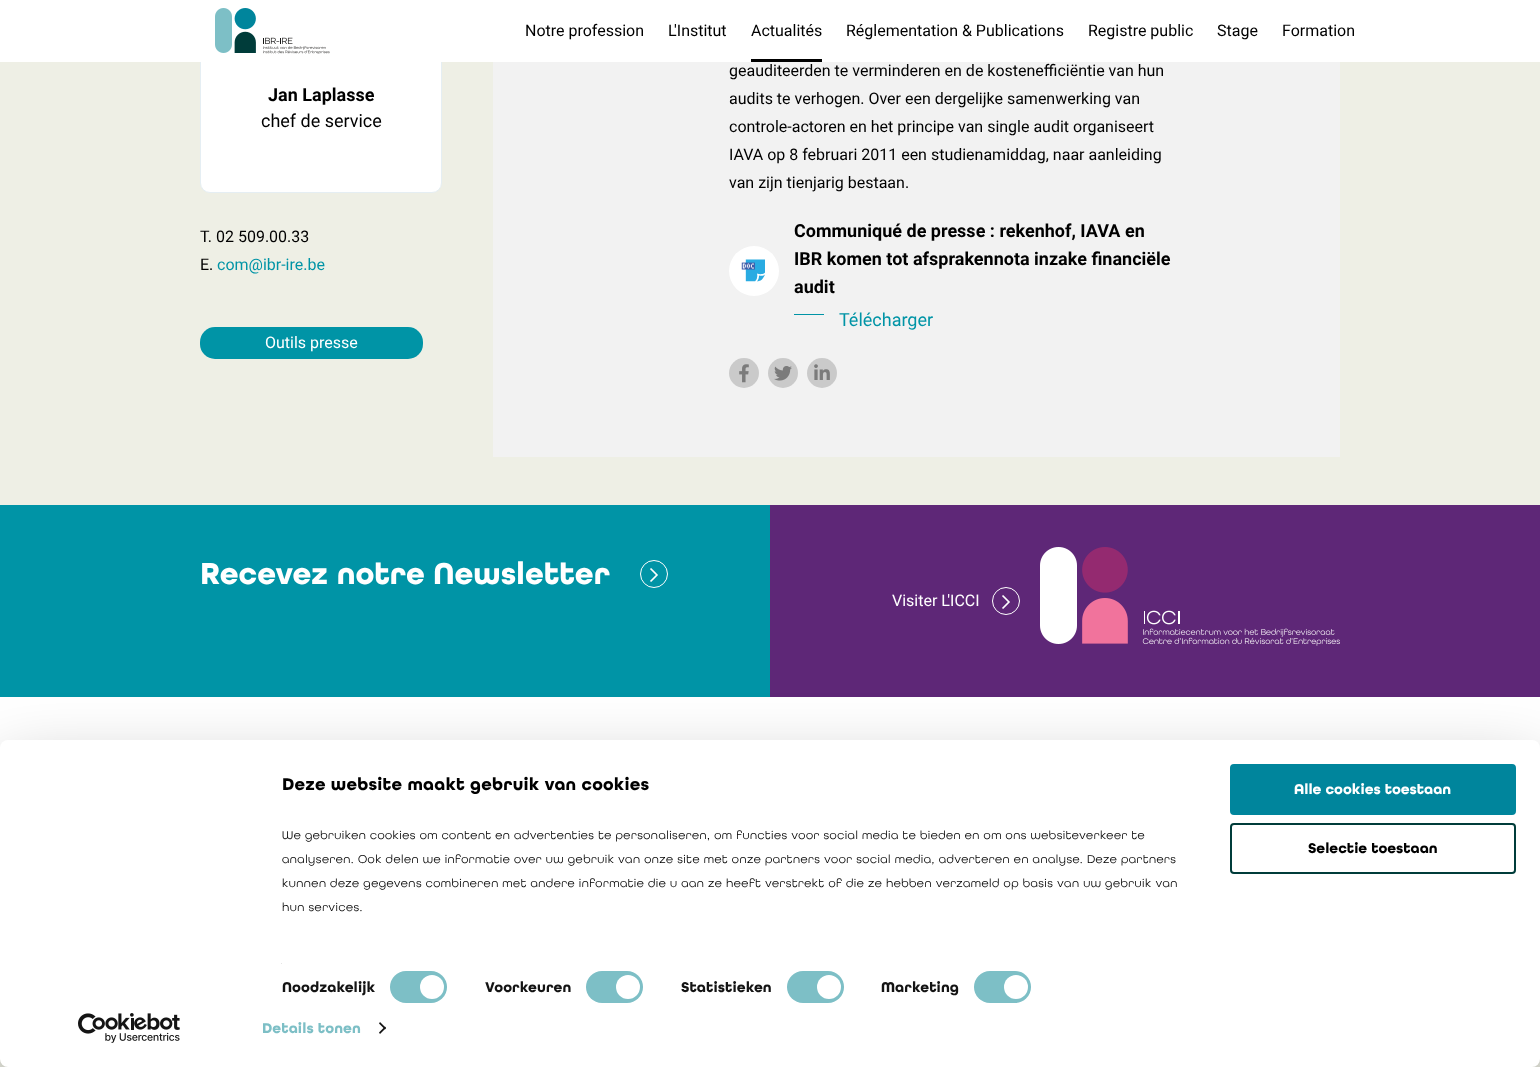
<svg xmlns="http://www.w3.org/2000/svg" width="1540" height="1067" viewBox="0 0 1540 1067">
  <rect width="100%" height="100%" fill="#fff"/>
  <path d="M0 62h1540v443H0z" fill="#eeefe5"/>
  <rect x="200.5" y="-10.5" width="241" height="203" rx="9.5" fill="#fff" stroke="#e5eef3"/>
  <path d="M200 0h242v62H200z" fill="#fff"/>
  <image x="215" y="8" width="115" height="46" href="img/1.png"/>
  <path d="M751 59h71v3H751z" fill="#000"/>
  <rect x="200" y="327" width="223" height="32" rx="15" fill="#0094a6"/>
  <path d="M493 62h847v395H493z" fill="#f2f2f2"/>
  <circle cx="754" cy="271" r="25" fill="#fff"/>
  <image x="741" y="259" width="24" height="23" href="img/2.png"/>
  <path d="M794 314h30v1H794z" fill="#0094a6"/>
  <circle cx="744" cy="373" r="15" fill="#cacaca"/>
  <image x="739" y="364" width="10" height="19" href="img/3.png"/>
  <circle cx="783" cy="373" r="15" fill="#cacaca"/>
  <image x="774" y="366" width="18" height="15" href="img/4.png"/>
  <circle cx="822" cy="373" r="15" fill="#cacaca"/>
  <image x="814" y="364" width="16" height="16" href="img/5.png"/>
  <path d="M770 505h770v192H770z" fill="#5e2777"/>
  <path d="M0 505h770v192H0z" fill="#0094a6"/>
  <circle cx="654" cy="574" r="13.5" fill="none" stroke="#fff"/>
  <image x="650" y="568" width="8" height="14" href="img/6.png"/>
  <circle cx="1006" cy="601" r="13.5" fill="none" stroke="#fff"/>
  <image x="1002" y="595" width="8" height="14" href="img/7.png"/>
  <image x="1040" y="547" width="300" height="99" href="img/8.png"/>
  <path d="M0 1059h1540v8H0z" fill="#eeefe5"/>
  <rect y="770" width="1540" height="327" rx="8" fill="#0000004d" filter="blur(35px)"/>
  <rect y="740" width="1540" height="327" rx="8" fill="#fff"/>
  <path d="M281 963h1v1H281z" fill="#e5e5e5"/>
  <rect x="390" y="971" width="57" height="32" rx="16" fill="#7dbfc6"/>
  <circle cx="432" cy="987" r="12" fill="#fff"/>
  <rect x="586" y="971" width="57" height="32" rx="16" fill="#7dbfc6"/>
  <circle cx="628" cy="987" r="12" fill="#fff"/>
  <rect x="787" y="971" width="57" height="32" rx="16" fill="#7dbfc6"/>
  <circle cx="829" cy="987" r="12" fill="#fff"/>
  <rect x="974" y="971" width="57" height="32" rx="16" fill="#7dbfc6"/>
  <circle cx="1016" cy="987" r="12" fill="#fff"/>
  <path d="M380 1022L386 1028L385 1029.5L379 1023.5Z" fill="#141414"/>
  <path d="M385 1026.5L386 1028L380 1034L379 1032.5Z" fill="#141414"/>
  <rect x="1231" y="765" width="284" height="49" rx="3" fill="#00859c" stroke="#00859c" stroke-width="2"/>
  <rect x="1231" y="824" width="284" height="49" rx="3" fill="none" stroke="#003c3a" stroke-width="2"/>
  <image x="78" y="1013" width="102" height="30" href="img/9.png"/>
  <g font-family="Roboto" font-size="16" fill="#000">
    <text x="525" y="36">Notre profession</text>
    <text x="668" y="36">L'Institut</text>
    <text x="751" y="36">Actualités</text>
    <text x="846" y="36">Réglementation &amp; Publications</text>
    <text x="1088" y="36">Registre public</text>
    <text x="1217" y="36">Stage</text>
    <text x="1282" y="36">Formation</text>
  </g>
  <text x="268" y="101" font-family="Roboto" font-size="18" font-weight="bold" fill="#000">Jan Laplasse</text>
  <text x="261" y="127" font-family="Roboto" font-size="18" fill="#000">chef de service</text>
  <g font-family="Roboto" font-size="16" fill="#000">
    <text x="200" y="242">T. 02 509.00.33</text>
    <text x="200" y="270">E.</text>
  </g>
  <text x="217" y="270" font-family="Roboto" font-size="16" fill="#0094a6">com@ibr-ire.be</text>
  <text x="265" y="348" font-family="Roboto" font-size="16" fill="#fff">Outils presse</text>
  <g font-family="Roboto" font-size="16" fill="#000">
    <text x="729" y="76">geauditeerden te verminderen en de kostenefficiëntie van hun</text>
    <text x="729" y="104">audits te verhogen. Over een dergelijke samenwerking van</text>
    <text x="729" y="132">controle-actoren en het principe van single audit organiseert</text>
    <text x="729" y="160">IAVA op 8 februari 2011 een studienamiddag, naar aanleiding</text>
    <text x="729" y="188">van zijn tienjarig bestaan.</text>
  </g>
  <g font-family="Roboto" font-size="18" font-weight="bold" fill="#000">
    <text x="794" y="237">Communiqué de presse : rekenhof, IAVA en</text>
    <text x="794" y="265">IBR komen tot afsprakennota inzake financiële</text>
    <text x="794" y="293">audit</text>
  </g>
  <text x="839" y="326" font-family="Roboto" font-size="18" fill="#0094a6">Télécharger</text>
  <text x="200" y="584" font-family="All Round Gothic" font-size="32" font-weight="bold" fill="#fff">Recevez notre Newsletter</text>
  <text x="892" y="606" font-family="Roboto" font-size="16" fill="#fff">Visiter L'ICCI</text>
  <text x="282" y="790" font-family="All Round Gothic" font-size="18" font-weight="bold" letter-spacing="0.25" fill="#000">Deze website maakt gebruik van cookies</text>
  <g font-family="All Round Gothic" font-size="12" letter-spacing="0.5" fill="#000">
    <text x="282" y="839">We gebruiken cookies om content en advertenties te personaliseren, om functies voor social media te bieden en om ons websiteverkeer te</text>
    <text x="282" y="863">analyseren. Ook delen we informatie over uw gebruik van onze site met onze partners voor social media, adverteren en analyse. Deze partners</text>
    <text x="282" y="887">kunnen deze gegevens combineren met andere informatie die u aan ze heeft verstrekt of die ze hebben verzameld op basis van uw gebruik van</text>
    <text x="282" y="911">hun services.</text>
  </g>
  <g font-family="All Round Gothic" font-size="15" font-weight="bold" letter-spacing="0.1" fill="#141414">
    <text x="282" y="992">Noodzakelijk</text>
    <text x="485" y="992">Voorkeuren</text>
    <text x="681" y="992">Statistieken</text>
    <text x="881" y="992">Marketing</text>
  </g>
  <text x="262" y="1033" font-family="All Round Gothic" font-size="15" font-weight="bold" letter-spacing="0.1" fill="#7dbfc6">Details tonen</text>
  <text x="1294" y="794" font-family="All Round Gothic" font-size="15" font-weight="bold" fill="#fff">Alle cookies toestaan</text>
  <text x="1308" y="853" font-family="All Round Gothic" font-size="15" font-weight="bold" fill="#000">Selectie toestaan</text>
</svg>
